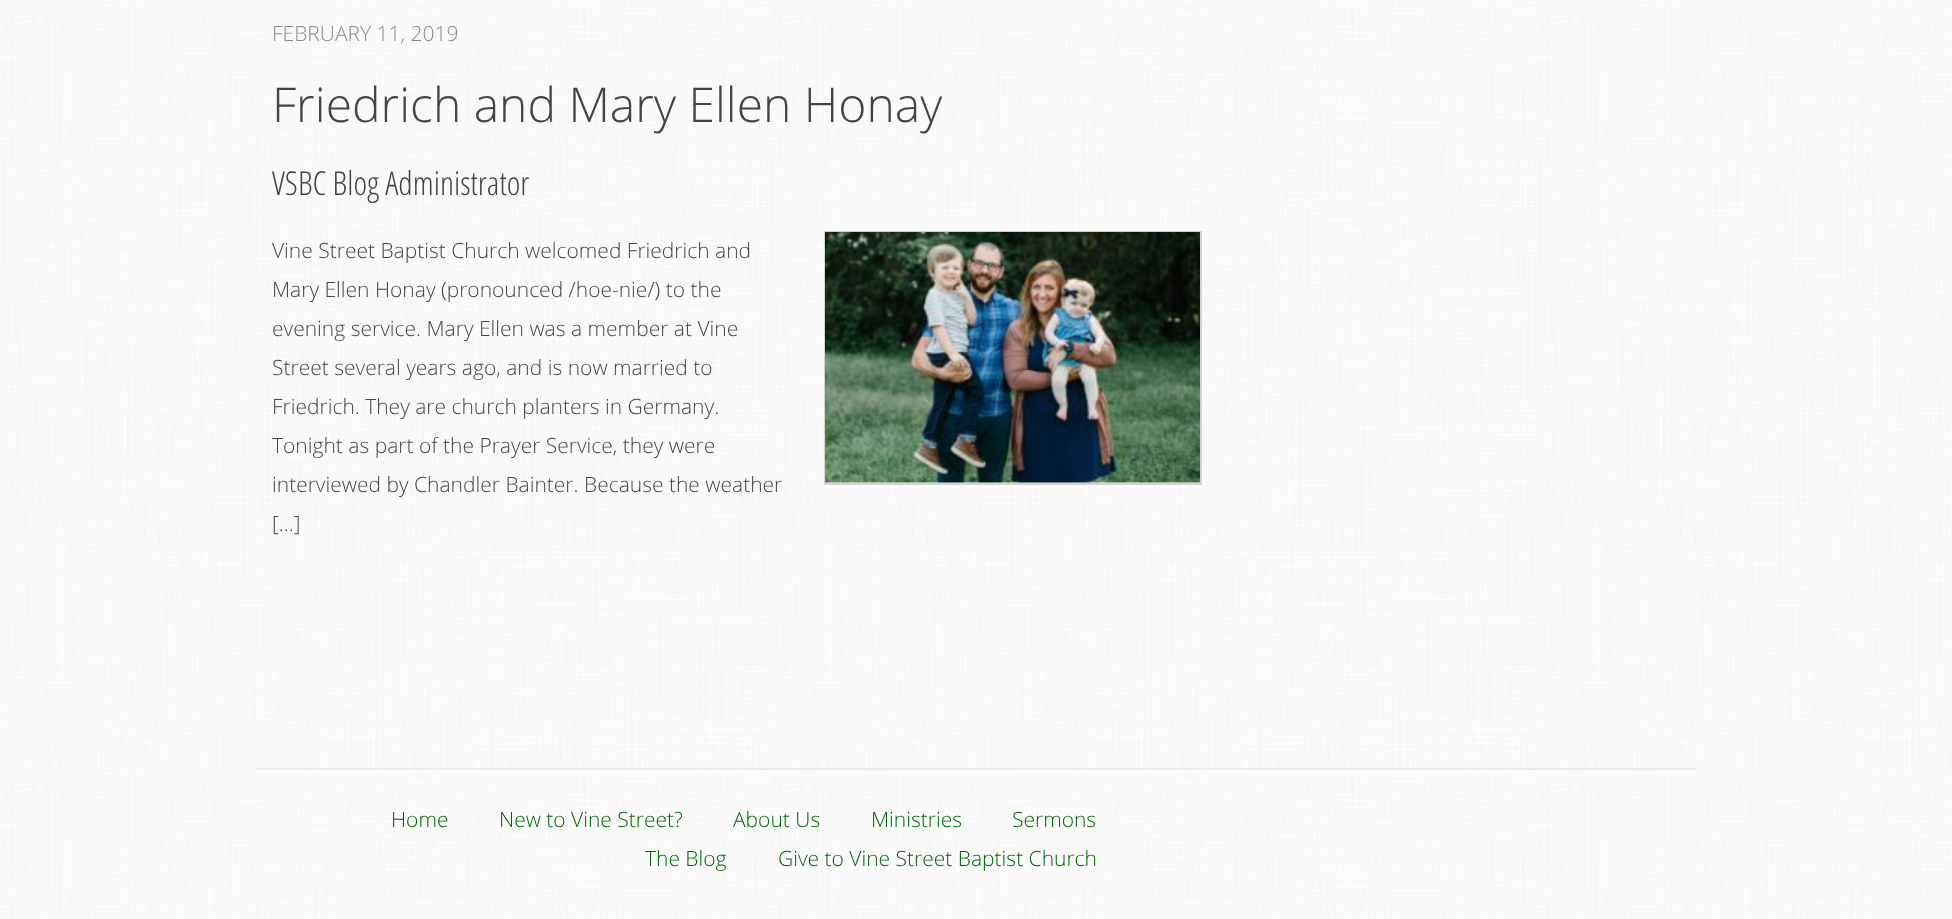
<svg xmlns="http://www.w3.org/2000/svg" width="1952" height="919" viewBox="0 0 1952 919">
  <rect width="100%" height="100%" fill="#fff"/>
  <image x="0" y="0" width="1952" height="919" href="img/1.png"/>
  <path d="M825 232h376v252H825z" fill="none" stroke="#d3d3d3" stroke-width="2"/>
  <image x="825" y="232" width="375" height="251" href="img/2.png"/>
  <path d="M257 768h1440v2H257z" fill="#ecebeb"/>
  <text x="272" y="41" font-family="Open Sans" font-size="21" font-weight="300" fill="#8b8b86">FEBRUARY 11, 2019</text>
  <text x="272" y="122" font-family="Open Sans" font-size="48" font-weight="300" fill="#444">Friedrich and Mary Ellen Honay</text>
  <text x="272" y="195" font-family="'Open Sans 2'" font-size="33" font-weight="300" fill="#444">VSBC Blog Administrator</text>
  <g font-family="Open Sans" font-size="21" font-weight="300" fill="#444">
    <text x="272" y="258">Vine Street Baptist Church welcomed Friedrich and</text>
    <text x="272" y="297">Mary Ellen Honay (pronounced /hoe-nie/) to the</text>
    <text x="272" y="336">evening service. Mary Ellen was a member at Vine</text>
    <text x="272" y="375">Street several years ago, and is now married to</text>
    <text x="272" y="414">Friedrich. They are church planters in Germany.</text>
    <text x="272" y="453">Tonight as part of the Prayer Service, they were</text>
    <text x="272" y="492">interviewed by Chandler Bainter. Because the weather</text>
    <text x="272" y="531">[…]</text>
  </g>
  <g font-family="Open Sans" font-size="21" font-weight="300" fill="#006604">
    <text x="391" y="827">Home</text>
    <text x="499" y="827">New to Vine Street?</text>
    <text x="733" y="827">About Us</text>
    <text x="871" y="827">Ministries</text>
    <text x="1012" y="827">Sermons</text>
    <text x="645" y="866">The Blog</text>
    <text x="778" y="866">Give to Vine Street Baptist Church</text>
  </g>
</svg>
